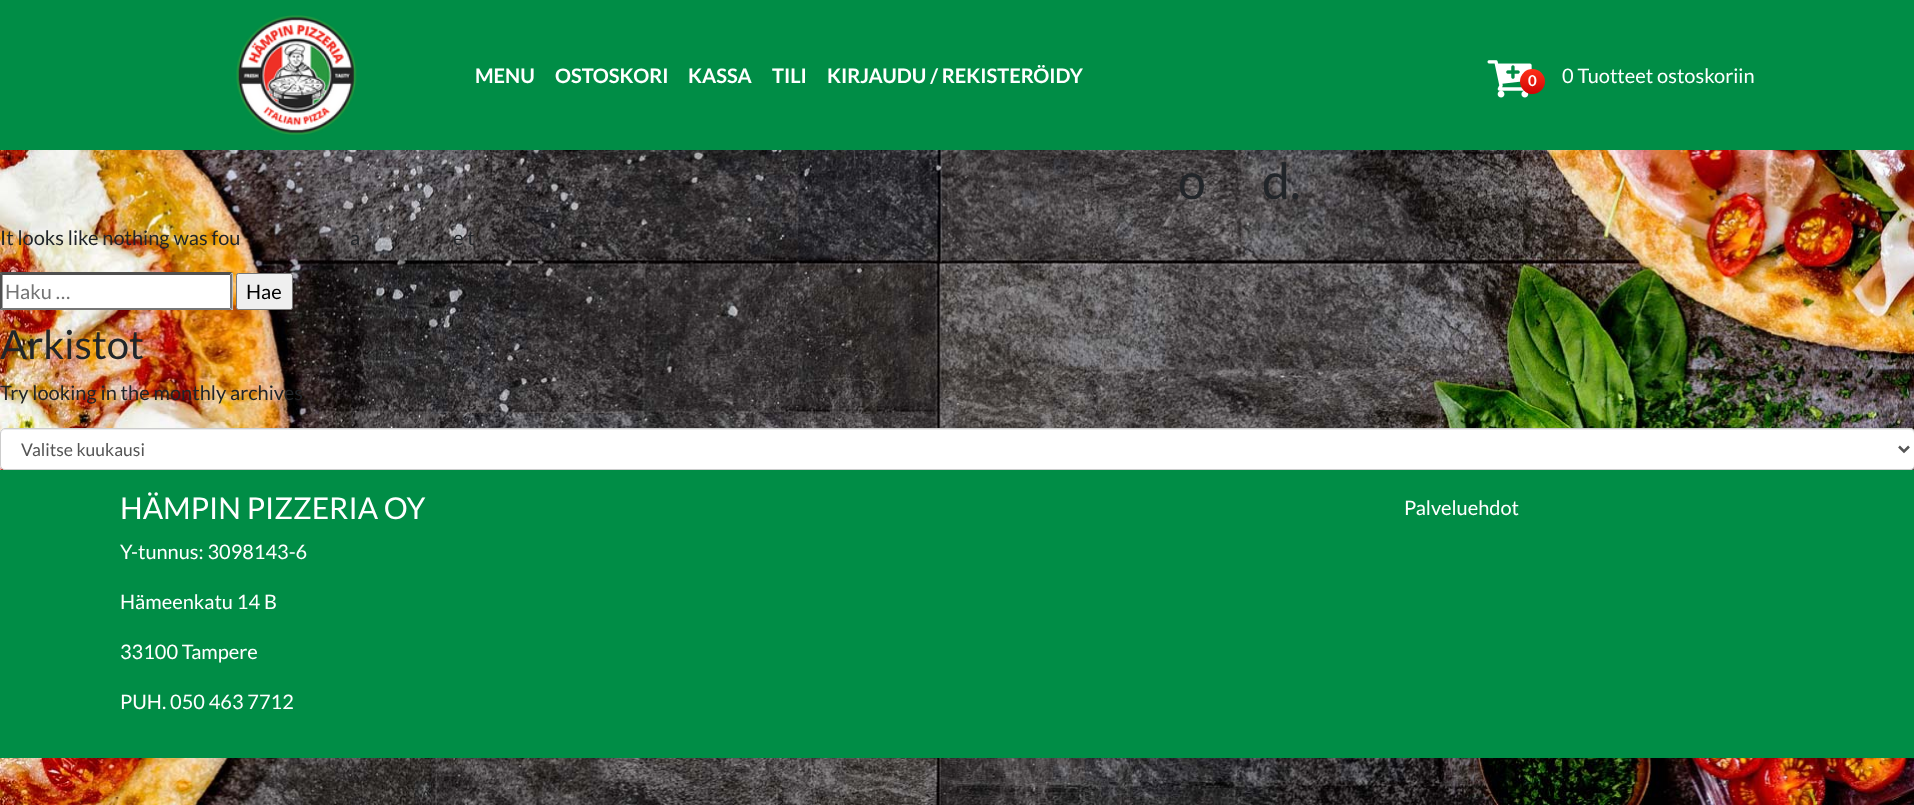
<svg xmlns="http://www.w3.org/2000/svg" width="1914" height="805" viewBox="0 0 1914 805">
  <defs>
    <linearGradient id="g1" gradientUnits="userSpaceOnUse" x1="1533" y1="69" x2="1533" y2="94"><stop offset="0" stop-color="#ff3019"/><stop offset="1" stop-color="#cf0404"/></linearGradient>
  </defs>
  <rect width="100%" height="100%" fill="#fff"/>
  <image x="0" y="150" width="1914" height="655" href="img/1.png"/>
  <path d="M0 0h1914v150H0z" fill="#008d46"/>
  <image x="236" y="15" width="121" height="120" href="img/2.png"/>
  <image x="1487" y="60" width="45" height="38" href="img/3.png"/>
  <circle cx="1532.5" cy="81.5" r="12.5" fill="url(#g1)"/>
  <path d="M0 273h233v37H0z" fill="#fff"/>
  <path d="M0 272H232L230 275H2Z" fill="#4f4f4f"/>
  <path d="M232.5 272.5V310L230 307.5V275Z" fill="#767676"/>
  <path d="M232 310H0L2 308H230Z" fill="#767676"/>
  <path d="M0 310V272.5L2.5 275V307.5Z" fill="#4f4f4f"/>
  <rect x="236.5" y="273.5" width="56" height="36" rx="2" fill="#efefef" stroke="#767676"/>
  <rect y="428" width="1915" height="42" rx="5" fill="#fff"/>
  <path d="M5 430H1910C1912 430 1914 432 1914 434V433C1914 431 1912 429 1910 429H5C3 429 1 431 1 433V434C1 432 3 430 5 430Z" fill="#ececec"/>
  <rect x="0.5" y="428.5" width="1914" height="41" rx="4.5" fill="none" stroke="#ccc"/>
  <path d="M1899 446.5L1904 451.5L1909 446.5" fill="none" stroke="#555" stroke-width="2.5"/>
  <path d="M0 470h1914v288H0z" fill="#008d46"/>
  <g font-family="Lato" font-size="20" font-weight="bold" fill="#fff">
    <text x="475" y="83">MENU</text>
    <text x="555" y="83">OSTOSKORI</text>
    <text x="688" y="83">KASSA</text>
    <text x="772" y="83">TILI</text>
    <text x="827" y="83">KIRJAUDU / REKISTERÖIDY</text>
  </g>
  <text x="1528" y="86" font-family="Lato" font-size="15" font-weight="bold" fill="#fff">0</text>
  <text x="1562" y="83" font-family="Lato" font-size="20" fill="#fff">0 Tuotteet ostoskoriin</text>
  <g font-family="Lato" font-size="50" fill="#212529">
    <text x="1178" y="199">o</text>
    <text x="1262" y="199">d.</text>
  </g>
  <g font-family="Lato" font-size="20" fill="#212529">
    <text x="0" y="245">It looks like nothing was fou</text>
    <text x="350" y="245">a</text>
    <text x="453" y="245">e t</text>
  </g>
  <text x="5" y="299" font-family="Lato" font-size="20" fill="#757575">Haku …</text>
  <text x="246" y="299" font-family="Lato" font-size="20" fill="#000">Hae</text>
  <text x="0" y="359" font-family="Lato" font-size="40" fill="#212529">Arkistot</text>
  <text x="0" y="400" font-family="Lato" font-size="20" fill="#212529">Try looking in the monthly archives</text>
  <text x="21" y="456" font-family="Lato" font-size="17.5" fill="#555">Valitse kuukausi</text>
  <text x="120" y="519" font-family="Lato" font-size="30" fill="#fff">HÄMPIN PIZZERIA OY</text>
  <g font-family="Lato" font-size="20" fill="#fff">
    <text x="120" y="559">Y-tunnus: 3098143-6</text>
    <text x="120" y="609">Hämeenkatu 14 B</text>
    <text x="120" y="659">33100 Tampere</text>
    <text x="120" y="709">PUH. 050 463 7712</text>
    <text x="1404" y="515">Palveluehdot</text>
  </g>
</svg>
